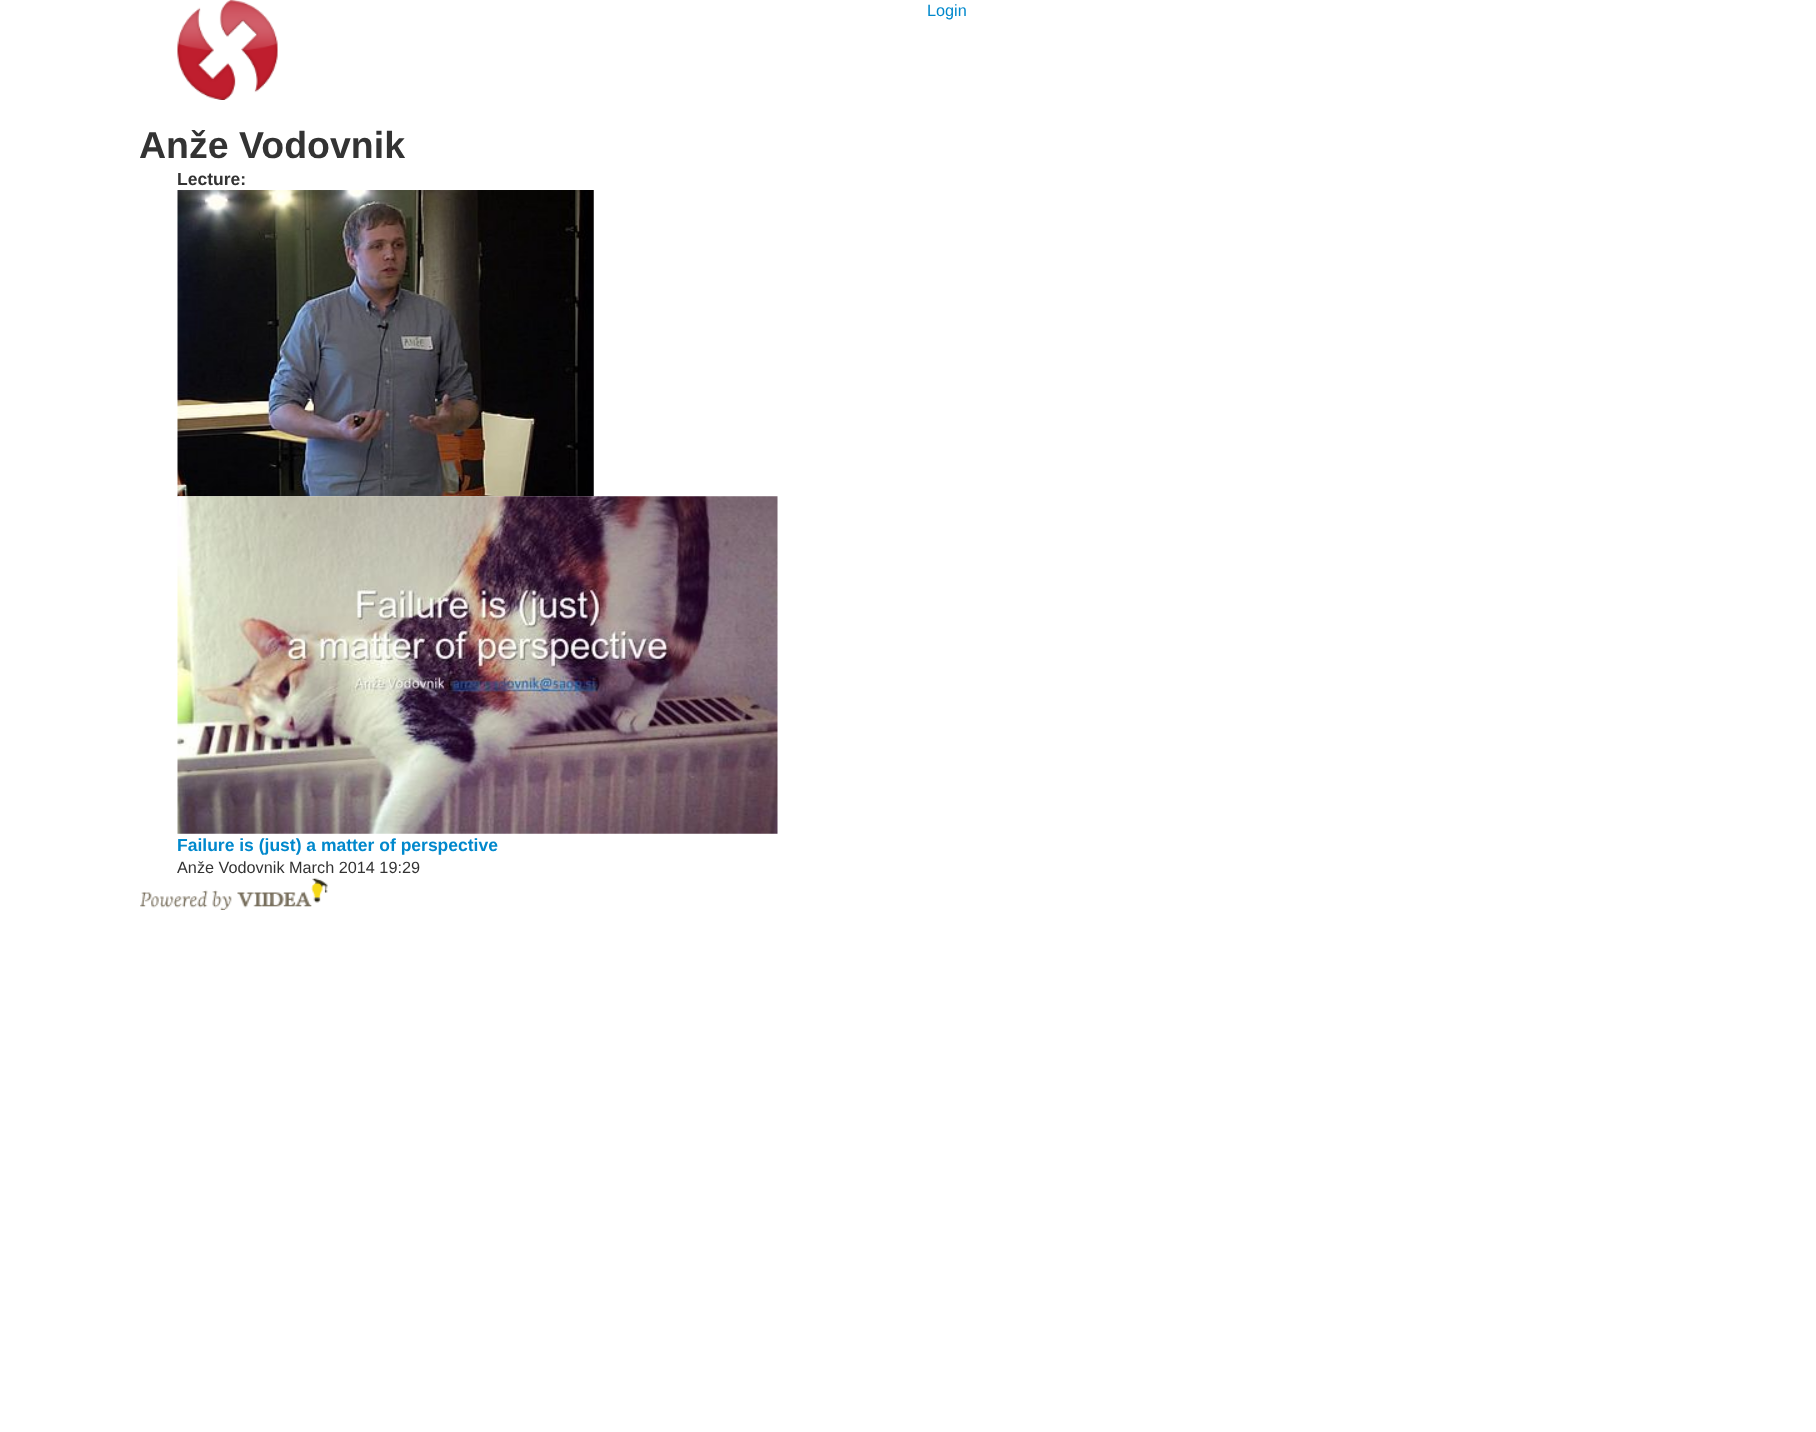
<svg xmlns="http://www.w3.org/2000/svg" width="1816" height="1432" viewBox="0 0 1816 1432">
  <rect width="100%" height="100%" fill="#fff"/>
  <image x="177" y="0" width="101" height="100" href="img/1.png"/>
  <image x="177" y="190" width="417" height="307" href="img/2.png"/>
  <image x="177" y="496" width="601" height="338" href="img/3.png"/>
  <image x="140" y="878" width="188" height="32" href="img/4.png"/>
  <text x="927" y="16" font-family="Liberation Sans" font-size="16.25" fill="#08c">Login</text>
  <text x="139" y="158" font-family="Liberation Sans" font-size="37.5" font-weight="bold" fill="#333">Anže Vodovnik</text>
  <text x="177" y="185" font-family="Liberation Sans" font-size="17.5" font-weight="bold" fill="#333">Lecture:</text>
  <text x="177" y="851" font-family="Liberation Sans" font-size="17.5" font-weight="bold" fill="#08c">Failure is (just) a matter of perspective</text>
  <text x="177" y="873" font-family="Liberation Sans" font-size="16.25" fill="#333">Anže Vodovnik March 2014 19:29</text>
</svg>
